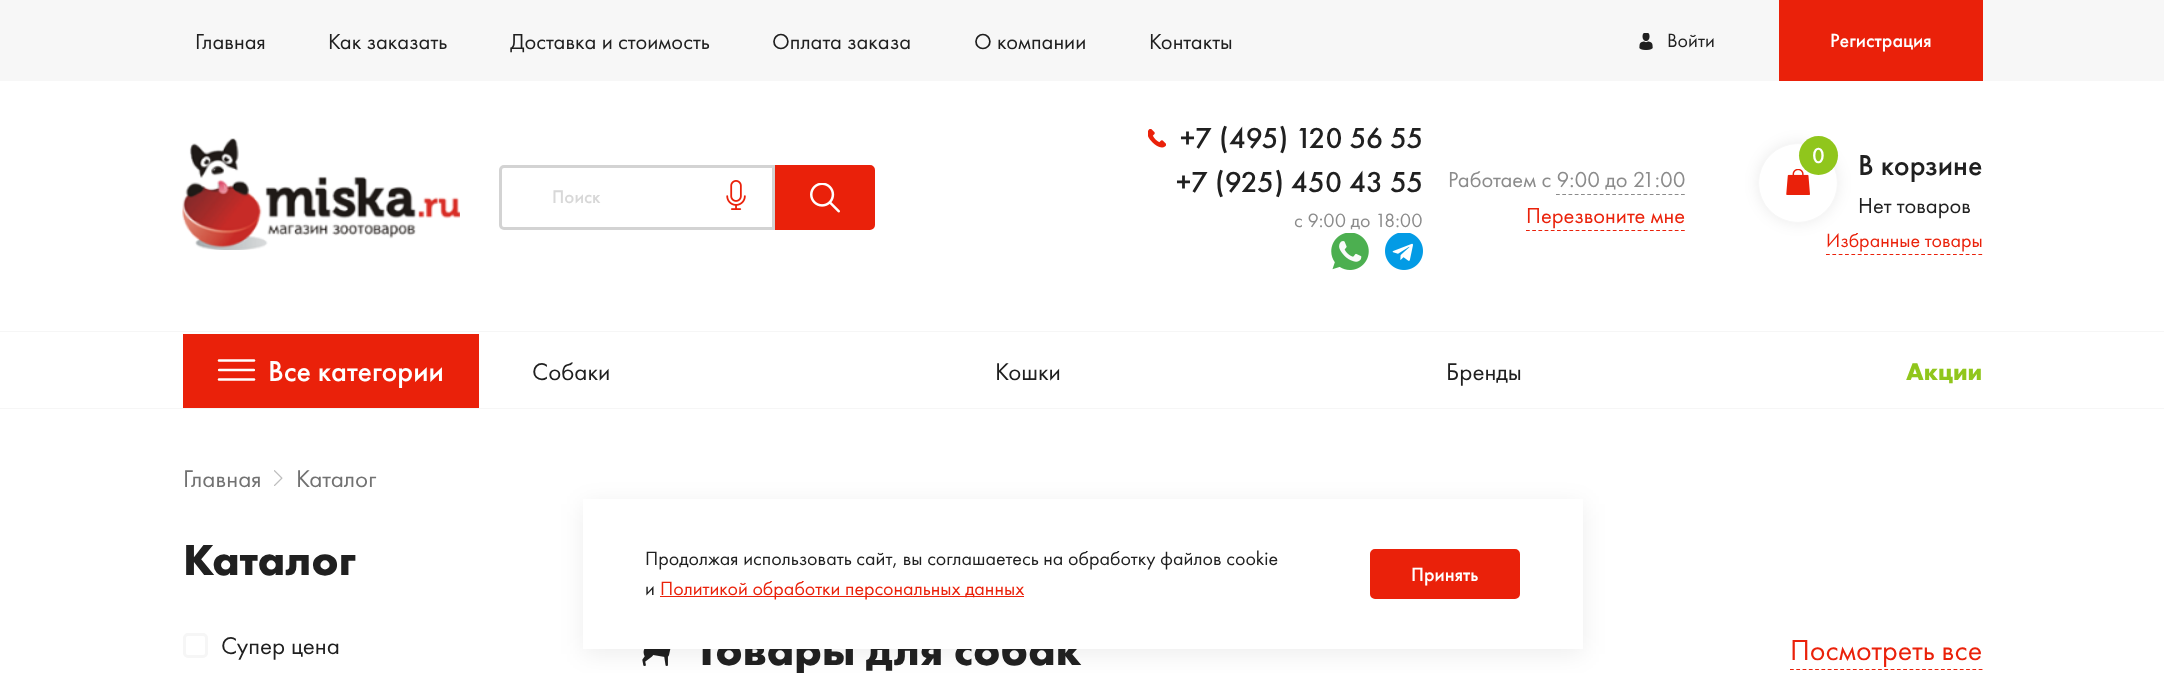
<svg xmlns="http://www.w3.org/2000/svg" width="2164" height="673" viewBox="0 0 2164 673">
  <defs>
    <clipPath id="clip1"><path d="M218 351h37v38H218z"/></clipPath>
  </defs>
  <rect width="100%" height="100%" fill="#fff"/>
  <path d="M0 0h2164v81H0z" fill="#f7f7f7"/>
  <image x="1639" y="33" width="14" height="17" href="img/1.png"/>
  <path d="M1779 0h204v81H1779z" fill="#ea210a"/>
  <image x="182" y="138" width="278" height="112" href="img/2.png"/>
  <path d="M504 166.5H773.5V228.5H504C502 228.5 500.5 227 500.5 225V170C500.5 168 502 166.5 504 166.5Z" fill="none" stroke="#d3d3d3" stroke-width="3"/>
  <image x="726" y="180" width="20" height="30" href="img/3.png"/>
  <path d="M776.5 166.5H870C872 166.5 873.5 168 873.5 170V225C873.5 227 872 228.5 870 228.5H776.5Z" fill="#ea210a" stroke="#ea210a" stroke-width="3"/>
  <image x="810" y="183" width="30" height="30" href="img/4.png"/>
  <image x="1148" y="129" width="18" height="19" href="img/5.png"/>
  <image x="1331" y="233" width="38" height="37" href="img/6.png"/>
  <image x="1385" y="233" width="38" height="37" href="img/7.png"/>
  <path d="M1556 194.5H1685" fill="none" stroke="#8b8b8b" stroke-width="1.2" stroke-dasharray="3.75 2.5"/>
  <path d="M1526 230.5H1685" fill="none" stroke="#ea210a" stroke-width="1.2" stroke-dasharray="3.75 2.45"/>
  <rect x="1758" y="143" width="80" height="80" rx="40" fill="#00000014" filter="blur(7.5px)"/>
  <circle cx="1798" cy="183" r="39.5" fill="#fff" stroke="#f7f7f7"/>
  <image x="1786" y="169" width="24" height="26" href="img/8.png"/>
  <circle cx="1818.5" cy="155.5" r="19.5" fill="#90c61c"/>
  <path d="M1826 254.5H1982.5" fill="none" stroke="#ea210a" stroke-width="1.2" stroke-dasharray="3.75 2.6"/>
  <path d="M0 331h2164v1H0z" fill="#f6f6f6"/>
  <path d="M0 408h2164v1H0z" fill="#f6f6f6"/>
  <path d="M183 334h296v74H183z" fill="#ea210a"/>
  <path d="M219 360.5H254" fill="none" stroke="#fff" stroke-width="2.5" stroke-linecap="round" stroke-linejoin="round"/>
  <g clip-path="url(#clip1)">
    <path d="M219 370H254" fill="none" stroke="#fff" stroke-width="2.5" stroke-linecap="round" stroke-linejoin="round"/>
  </g>
  <path d="M219 379.5H254" fill="none" stroke="#fff" stroke-width="2.5" stroke-linecap="round" stroke-linejoin="round"/>
  <image x="274" y="470" width="9" height="16" href="img/9.png"/>
  <image x="642" y="649" width="29" height="17" href="img/10.png"/>
  <path d="M583 504h1000v150H583z" fill="#00000012" filter="blur(12.5px)"/>
  <rect x="184.5" y="634.5" width="22" height="22" rx="3.5" fill="none" stroke="#f6f6f6" stroke-width="3"/>
  <path d="M1790 669.5H1982.5" fill="none" stroke="#ea210a" stroke-width="1.2" stroke-dasharray="3.75 2.54"/>
  <g font-family="Futura PT" font-size="22.5" fill="#202020">
    <text x="195" y="49">Главная</text>
    <text x="328" y="49">Как заказать</text>
    <text x="510" y="49">Доставка и стоимость</text>
    <text x="772" y="49">Оплата заказа</text>
    <text x="974" y="49">О компании</text>
    <text x="1149" y="49">Контакты</text>
  </g>
  <text x="1667" y="47" font-family="Futura PT" font-size="20" fill="#202020">Войти</text>
  <text x="1830" y="47" font-family="Futura PT" font-size="20" font-weight="500" fill="#fff">Регистрация</text>
  <text x="552" y="203" font-family="Futura PT" font-size="19" font-weight="500" fill="#d8d8d8">Поиск</text>
  <g font-family="Futura PT" font-size="30" font-weight="500" fill="#202020">
    <text x="1180" y="148">+7 (495) 120 56 55</text>
    <text x="1176" y="192">+7 (925) 450 43 55</text>
  </g>
  <text x="1294" y="227" font-family="Futura PT" font-size="20" fill="#8b8b8b">с 9:00 до 18:00</text>
  <text x="1448" y="187" font-family="Futura PT" font-size="22.5" fill="#8b8b8b">Работаем с 9:00 до 21:00</text>
  <text x="1526" y="223" font-family="Futura PT" font-size="22.5" fill="#ea210a">Перезвоните мне</text>
  <text x="1812" y="163" font-family="Futura PT" font-size="22.5" font-weight="500" fill="#fff">0</text>
  <text x="1858" y="175" font-family="Futura PT" font-size="30" font-weight="500" fill="#202020">В корзине</text>
  <text x="1858" y="213" font-family="Futura PT" font-size="22.5" fill="#202020">Нет товаров</text>
  <text x="1826" y="247" font-family="Futura PT" font-size="20" fill="#ea210a">Избранные товары</text>
  <text x="268" y="381" font-family="Futura PT" font-size="30" font-weight="500" fill="#fff">Все категории</text>
  <g font-family="Futura PT" font-size="25" fill="#202020">
    <text x="532" y="380">Собаки</text>
    <text x="995" y="380">Кошки</text>
    <text x="1446" y="380">Бренды</text>
  </g>
  <text x="1906" y="380" font-family="Futura PT" font-size="25" font-weight="bold" fill="#90c61c">Акции</text>
  <g font-family="Futura PT" font-size="25" fill="#727272">
    <text x="183" y="487">Главная</text>
    <text x="296" y="487">Каталог</text>
  </g>
  <text x="183" y="575" font-family="Futura PT" font-size="45" font-weight="bold" fill="#202020">Каталог</text>
  <text x="221" y="654" font-family="Futura PT" font-size="25" fill="#202020">Супер цена</text>
  <text x="696" y="665" font-family="Futura PT" font-size="45" font-weight="bold" fill="#202020">Товары для собак</text>
  <path d="M583 499h1000v150H583z" fill="#fff"/>
  <rect x="1371.5" y="550.5" width="147" height="47" rx="3.5" fill="#ea210a" stroke="#ea210a" stroke-width="3"/>
  <text x="1411" y="581" font-family="Futura PT" font-size="20" font-weight="500" fill="#fff">Принять</text>
  <path d="M660 596h364v1H660z" fill="#ea210a"/>
  <text x="660" y="595" font-family="Futura PT" font-size="20" fill="#ea210a">Политикой обработки персональных данных</text>
  <g font-family="Futura PT" font-size="20" fill="#202020">
    <text x="645" y="595">и</text>
    <text x="645" y="565">Продолжая использовать сайт, вы соглашаетесь на обработку файлов cookie</text>
  </g>
  <text x="1790" y="660" font-family="Futura PT" font-size="30" fill="#ea210a">Посмотреть все</text>
</svg>
